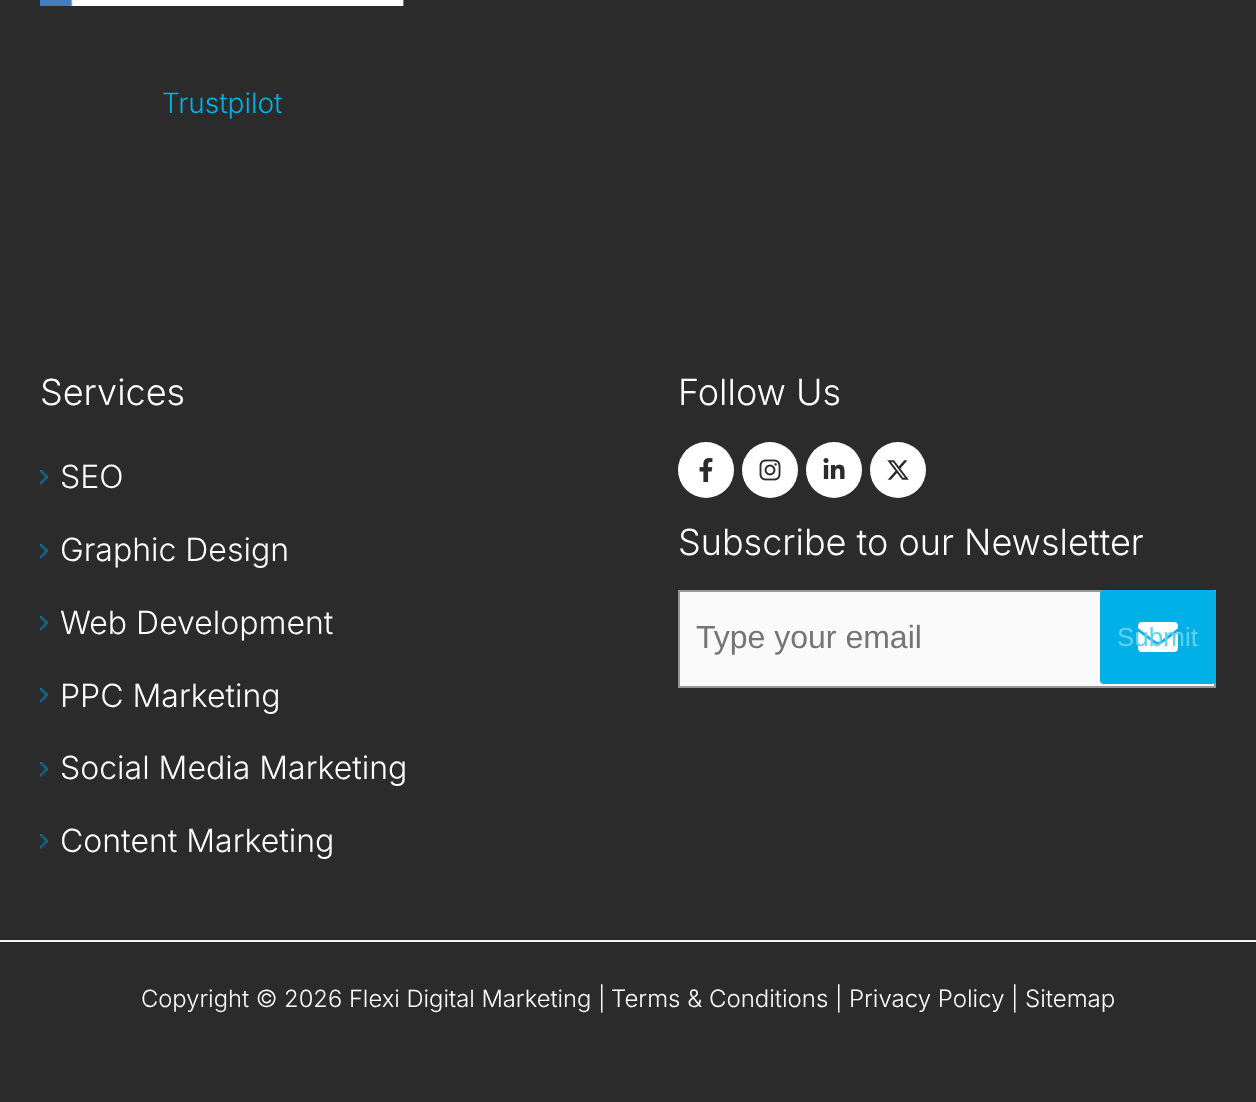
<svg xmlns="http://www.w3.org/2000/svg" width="1256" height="1102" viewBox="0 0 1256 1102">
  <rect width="100%" height="100%" fill="#2b2b2b"/>
  <image x="40" y="0" width="364" height="6" href="img/1.png"/>
  <image x="40" y="470" width="8" height="15" href="img/2.png"/>
  <image x="40" y="544" width="8" height="15" href="img/2.png"/>
  <image x="40" y="616" width="8" height="15" href="img/2.png"/>
  <image x="40" y="688" width="8" height="15" href="img/2.png"/>
  <image x="40" y="762" width="8" height="15" href="img/2.png"/>
  <image x="40" y="834" width="8" height="15" href="img/2.png"/>
  <circle cx="706" cy="470" r="28" fill="#fff"/>
  <image x="699" y="458" width="14" height="24" href="img/3.png"/>
  <circle cx="770" cy="470" r="28" fill="#fff"/>
  <image x="759" y="459" width="22" height="22" href="img/4.png"/>
  <circle cx="834" cy="470" r="28" fill="#fff"/>
  <image x="823" y="458" width="22" height="21" href="img/5.png"/>
  <circle cx="898" cy="470" r="28" fill="#fff"/>
  <image x="887" y="460" width="22" height="20" href="img/6.png"/>
  <path d="M679 591h536v96H679z" fill="#fafafa" stroke="#979797" stroke-width="2"/>
  <rect x="1100" y="590" width="116" height="94" rx="4" fill="#00b0e6"/>
  <image x="1138" y="622" width="40" height="30" href="img/7.png"/>
  <path d="M0 940h1256v2H0z" fill="#f2f5f7"/>
  <text x="162" y="113" font-family="Inter" font-size="28" font-weight="300" fill="#00b0e6">Trustpilot</text>
  <text x="40" y="405" font-family="Inter" font-size="36" font-weight="300" fill="#fff">Services</text>
  <g font-family="Inter" font-size="32" font-weight="300" fill="#fff">
    <text x="60" y="488">SEO</text>
    <text x="60" y="561">Graphic Design</text>
    <text x="60" y="634">Web Development</text>
    <text x="60" y="707">PPC Marketing</text>
    <text x="60" y="779">Social Media Marketing</text>
    <text x="60" y="852">Content Marketing</text>
  </g>
  <g font-family="Inter" font-size="36" font-weight="300" fill="#fff">
    <text x="678" y="405">Follow Us</text>
    <text x="678" y="555">Subscribe to our Newsletter</text>
  </g>
  <text x="696" y="648" font-family="Liberation Sans" font-size="32" fill="#757575">Type your email</text>
  <text x="1117" y="646" font-family="Liberation Sans" font-size="26" fill="#65cff0">Submit</text>
  <text x="141" y="1007" font-family="Inter" font-size="23.75" font-weight="300" fill="#fff">Copyright © 2026 Flexi Digital Marketing |</text>
  <text x="611" y="1007" font-family="Inter" font-size="24" font-weight="300" fill="#fff">Terms &amp; Conditions</text>
  <text x="835" y="1007" font-family="Inter" font-size="23.75" font-weight="300" fill="#fff">|</text>
  <text x="849" y="1007" font-family="Inter" font-size="24" font-weight="300" fill="#fff">Privacy Policy</text>
  <text x="1011" y="1007" font-family="Inter" font-size="23.75" font-weight="300" fill="#fff">|</text>
  <text x="1025" y="1007" font-family="Inter" font-size="24" font-weight="300" fill="#fff">Sitemap</text>
</svg>
